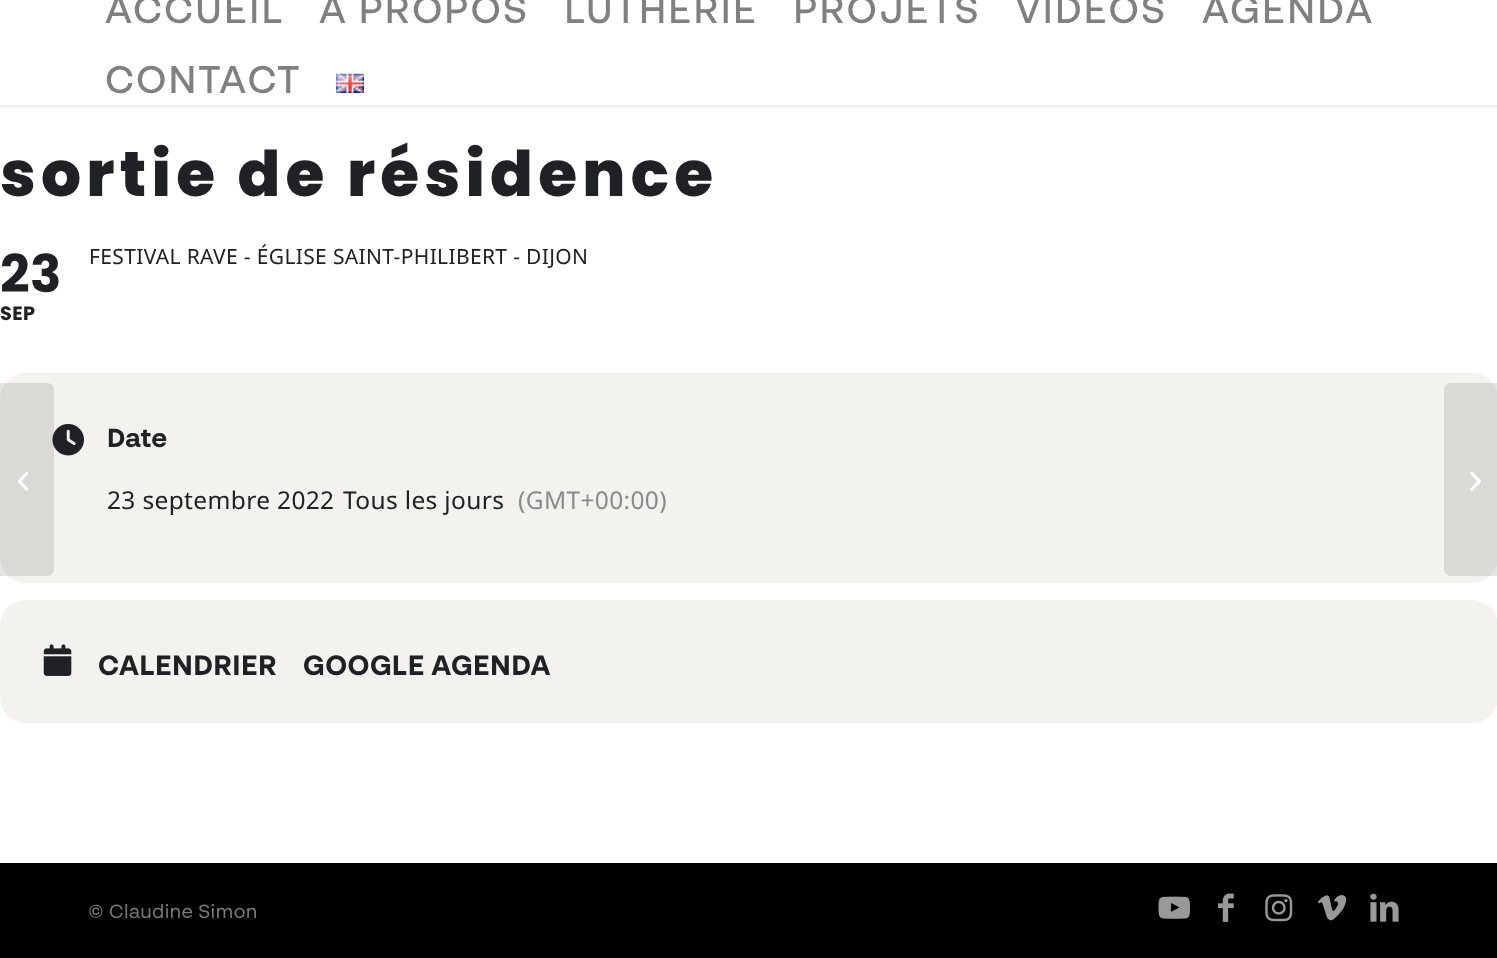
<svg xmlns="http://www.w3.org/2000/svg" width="1497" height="958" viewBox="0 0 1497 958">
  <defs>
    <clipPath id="clip1"><path d="M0 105h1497v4H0z"/></clipPath>
  </defs>
  <rect width="100%" height="100%" fill="#fff"/>
  <g clip-path="url(#clip1)">
    <path d="M-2 -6h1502v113H-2z" fill="#0000001a" filter="blur(2px)"/>
  </g>
  <image x="336" y="73" width="28" height="20" href="img/1.png"/>
  <rect y="373" width="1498" height="210" rx="26" fill="#f3f2ef"/>
  <image x="52" y="423" width="32" height="33" href="img/2.png"/>
  <rect y="600" width="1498" height="123" rx="26" fill="#f3f2ef"/>
  <image x="43" y="644" width="29" height="32" href="img/3.png"/>
  <path d="M0 863h1497v95H0z" fill="#000"/>
  <image x="1158" y="896" width="32" height="23" href="img/4.png"/>
  <image x="1218" y="893" width="16" height="29" href="img/5.png"/>
  <image x="1265" y="894" width="28" height="28" href="img/6.png"/>
  <image x="1317" y="895" width="30" height="26" href="img/7.png"/>
  <image x="1370" y="893" width="29" height="29" href="img/8.png"/>
  <path d="M0 383H47C51 383 54 386 54 390V569C54 573 51 576 47 576H0Z" fill="#0000001a"/>
  <image x="18" y="471" width="10" height="20" href="img/9.png"/>
  <path d="M1451 383H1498V576H1451C1447 576 1444 573 1444 569V390C1444 386 1447 383 1451 383Z" fill="#0000001a"/>
  <image x="1470" y="471" width="11" height="20" href="img/10.png"/>
  <g font-family="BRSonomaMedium" font-size="38.5" font-weight="500" letter-spacing="1.75" fill="#808080">
    <text x="105" y="23">ACCUEIL</text>
    <text x="319" y="23">À PROPOS</text>
    <text x="564" y="23">LUTHERIE</text>
    <text x="793" y="23">PROJETS</text>
    <text x="1015" y="23">VIDÉOS</text>
    <text x="1202" y="23">AGENDA</text>
    <text x="105" y="93">CONTACT</text>
  </g>
  <text x="0" y="196" font-family="Poppins" font-size="63" font-weight="800" letter-spacing="5.25" fill="#202124">sortie de résidence</text>
  <text x="0" y="292" font-family="Poppins" font-size="52" font-weight="bold" letter-spacing="0.35" fill="#202124">23</text>
  <text x="0" y="320" font-family="Poppins" font-size="19.25" font-weight="bold" letter-spacing="0.35" fill="#202124">SEP</text>
  <text x="89" y="264" font-family="Noto Sans" font-size="21" letter-spacing="0.35" fill="#202124">FESTIVAL RAVE - ÉGLISE SAINT-PHILIBERT - DIJON</text>
  <text x="107" y="447" font-family="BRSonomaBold" font-size="26" font-weight="bold" fill="#202124">Date</text>
  <g font-family="Noto Sans" font-size="24.5" letter-spacing="0.35" fill="#202124">
    <text x="107" y="509">23 septembre 2022</text>
    <text x="343" y="509">Tous les jours</text>
  </g>
  <text x="518" y="509" font-family="Noto Sans" font-size="24.5" letter-spacing="0.35" fill="#8a8a8a">(GMT+00:00)</text>
  <g font-family="BRSonomaBold" font-size="28" font-weight="bold" letter-spacing="0.35" fill="#202124">
    <text x="98" y="675">CALENDRIER</text>
    <text x="303" y="675">GOOGLE AGENDA</text>
  </g>
  <text x="88" y="918" font-family="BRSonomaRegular" font-size="19.25" letter-spacing="0.35" fill="#7a7a7a">© Claudine Simon</text>
</svg>
